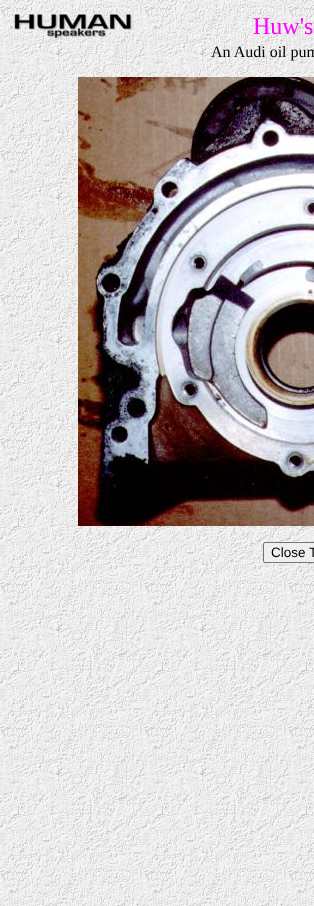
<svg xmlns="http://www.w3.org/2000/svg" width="314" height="906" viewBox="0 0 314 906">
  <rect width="100%" height="100%" fill="#fff"/>
  <image x="0" y="0" width="314" height="906" href="img/1.png"/>
  <image x="14" y="13" width="119" height="26" href="img/2.png"/>
  <image x="78" y="77" width="236" height="449" href="img/3.png"/>
  <rect x="263.5" y="542.5" width="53" height="20" rx="1.5" fill="#efefef" stroke="#767676"/>
  <text x="253" y="34" font-family="Liberation Serif" font-size="24" fill="#f0f">Huw's</text>
  <text x="211" y="57" font-family="Liberation Serif" font-size="16" fill="#000">An Audi oil pum</text>
  <text x="271" y="557" font-family="Liberation Sans" font-size="13.5" fill="#000">Close T</text>
</svg>
